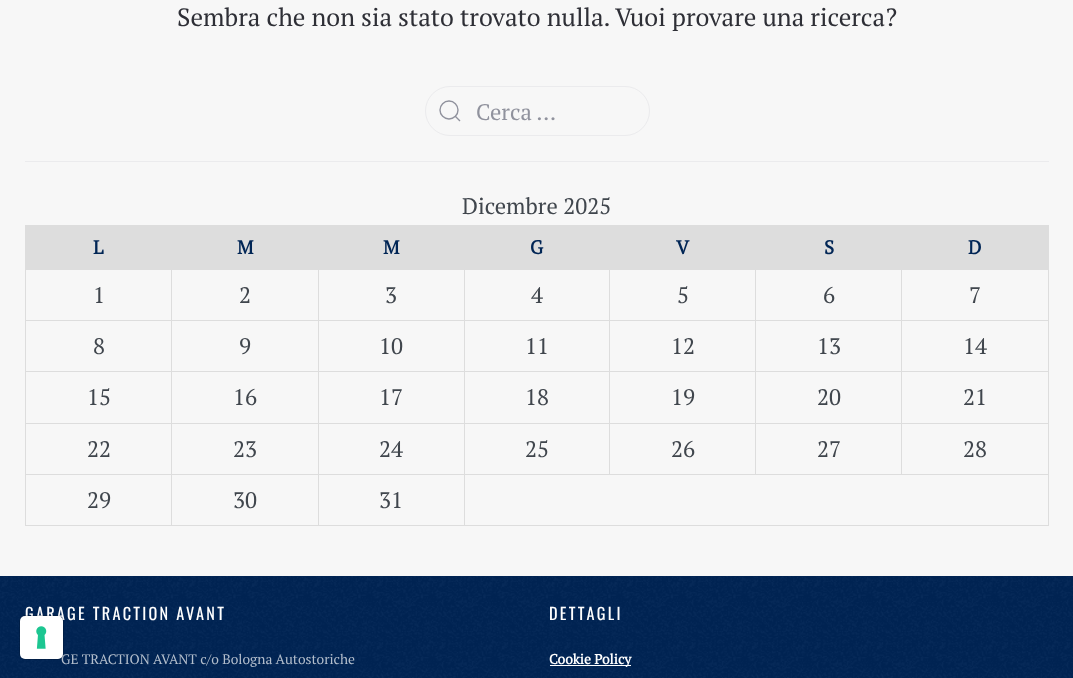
<svg xmlns="http://www.w3.org/2000/svg" width="1073" height="678" viewBox="0 0 1073 678">
  <rect width="100%" height="100%" fill="#f7f7f7"/>
  <rect x="425.5" y="86.5" width="224" height="49" rx="24.5" fill="none" stroke="#ebebed"/>
  <circle cx="449" cy="110" r="9" fill="none" stroke="#90929d" stroke-width="1.4"/>
  <path d="M455 116L460 121Z" fill="none" stroke="#90929d" stroke-width="1.4"/>
  <path d="M25 161h1024v1H25z" fill="#ebebed"/>
  <path d="M26 226h1023v43H26z" fill="#ddd"/>
  <path d="M25 225h1024v1H25z" fill="#ddd"/>
  <path d="M901 269h148v1H901z" fill="#ddd"/>
  <path d="M901 320h148v1H901z" fill="#ddd"/>
  <path d="M901 371h148v1H901z" fill="#ddd"/>
  <path d="M901 423h148v1H901z" fill="#ddd"/>
  <path d="M464 474h585v1H464z" fill="#ddd"/>
  <path d="M901 423h1v52H901z" fill="#ddd"/>
  <path d="M755 423h148v1H755z" fill="#ddd"/>
  <path d="M901 371h1v53H901z" fill="#ddd"/>
  <path d="M755 371h148v1H755z" fill="#ddd"/>
  <path d="M901 320h1v53H901z" fill="#ddd"/>
  <path d="M755 320h148v1H755z" fill="#ddd"/>
  <path d="M901 269h1v52H901z" fill="#ddd"/>
  <path d="M755 269h148v1H755z" fill="#ddd"/>
  <path d="M755 423h1v52H755z" fill="#ddd"/>
  <path d="M609 423h147v1H609z" fill="#ddd"/>
  <path d="M755 371h1v53H755z" fill="#ddd"/>
  <path d="M609 371h147v1H609z" fill="#ddd"/>
  <path d="M755 320h1v53H755z" fill="#ddd"/>
  <path d="M609 320h147v1H609z" fill="#ddd"/>
  <path d="M755 269h1v52H755z" fill="#ddd"/>
  <path d="M609 269h147v1H609z" fill="#ddd"/>
  <path d="M609 423h1v52H609z" fill="#ddd"/>
  <path d="M464 423h146v1H464z" fill="#ddd"/>
  <path d="M609 371h1v53H609z" fill="#ddd"/>
  <path d="M464 371h146v1H464z" fill="#ddd"/>
  <path d="M609 320h1v53H609z" fill="#ddd"/>
  <path d="M464 320h146v1H464z" fill="#ddd"/>
  <path d="M609 269h1v52H609z" fill="#ddd"/>
  <path d="M464 269h146v1H464z" fill="#ddd"/>
  <path d="M1048 474h1v52H1048z" fill="#ddd"/>
  <path d="M464 525h585v1H464z" fill="#ddd"/>
  <path d="M464 474h1v52H464z" fill="#ddd"/>
  <path d="M318 474h147v1H318z" fill="#ddd"/>
  <path d="M464 423h1v52H464z" fill="#ddd"/>
  <path d="M318 423h147v1H318z" fill="#ddd"/>
  <path d="M464 371h1v53H464z" fill="#ddd"/>
  <path d="M318 371h147v1H318z" fill="#ddd"/>
  <path d="M464 320h1v53H464z" fill="#ddd"/>
  <path d="M318 320h147v1H318z" fill="#ddd"/>
  <path d="M464 269h1v52H464z" fill="#ddd"/>
  <path d="M318 269h147v1H318z" fill="#ddd"/>
  <path d="M318 525h147v1H318z" fill="#ddd"/>
  <path d="M318 474h1v52H318z" fill="#ddd"/>
  <path d="M171 474h148v1H171z" fill="#ddd"/>
  <path d="M318 423h1v52H318z" fill="#ddd"/>
  <path d="M171 423h148v1H171z" fill="#ddd"/>
  <path d="M318 371h1v53H318z" fill="#ddd"/>
  <path d="M171 371h148v1H171z" fill="#ddd"/>
  <path d="M318 320h1v53H318z" fill="#ddd"/>
  <path d="M171 320h148v1H171z" fill="#ddd"/>
  <path d="M318 269h1v52H318z" fill="#ddd"/>
  <path d="M171 269h148v1H171z" fill="#ddd"/>
  <path d="M171 525h148v1H171z" fill="#ddd"/>
  <path d="M171 474h1v52H171z" fill="#ddd"/>
  <path d="M25 474h148v1H25z" fill="#ddd"/>
  <path d="M171 423h1v52H171z" fill="#ddd"/>
  <path d="M25 423h148v1H25z" fill="#ddd"/>
  <path d="M171 371h1v53H171z" fill="#ddd"/>
  <path d="M25 371h148v1H25z" fill="#ddd"/>
  <path d="M171 320h1v53H171z" fill="#ddd"/>
  <path d="M25 320h148v1H25z" fill="#ddd"/>
  <path d="M171 269h1v52H171z" fill="#ddd"/>
  <path d="M25 269h148v1H25z" fill="#ddd"/>
  <path d="M25 525h148v1H25z" fill="#ddd"/>
  <path d="M25 474h1v52H25z" fill="#ddd"/>
  <path d="M25 423h1v52H25z" fill="#ddd"/>
  <path d="M25 371h1v53H25z" fill="#ddd"/>
  <path d="M25 320h1v53H25z" fill="#ddd"/>
  <path d="M25 269h1v52H25z" fill="#ddd"/>
  <path d="M25 225h1v45H25z" fill="#ddd"/>
  <path d="M1048 423h1v52H1048z" fill="#ddd"/>
  <path d="M1048 371h1v53H1048z" fill="#ddd"/>
  <path d="M1048 320h1v53H1048z" fill="#ddd"/>
  <path d="M1048 269h1v52H1048z" fill="#ddd"/>
  <path d="M0 576h1073v102H0z" fill="#002555"/>
  <image x="0" y="576" width="1073" height="102" href="img/1.png"/>
  <path d="M550 665h81v1H550z" fill="#fff"/>
  <text x="177" y="26" font-family="PT Serif" font-size="25" fill="#2e2f36">Sembra che non sia stato trovato nulla. Vuoi provare una ricerca?</text>
  <text x="476" y="120" font-family="PT Serif" font-size="22.5" fill="#90929d">Cerca …</text>
  <text x="462" y="214" font-family="PT Serif" font-size="22.5" fill="#40464d">Dicembre 2025</text>
  <g font-family="PT Serif" font-size="19" font-weight="bold" fill="#002555">
    <text x="93" y="254">L</text>
    <text x="237" y="254">M</text>
    <text x="383" y="254">M</text>
    <text x="530" y="254">G</text>
    <text x="676" y="254">V</text>
    <text x="824" y="254">S</text>
    <text x="968" y="254">D</text>
  </g>
  <g font-family="PT Serif" font-size="22.5" fill="#40464d">
    <text x="93" y="303">1</text>
    <text x="239" y="303">2</text>
    <text x="385" y="303">3</text>
    <text x="531" y="303">4</text>
    <text x="677" y="303">5</text>
    <text x="823" y="303">6</text>
    <text x="969" y="303">7</text>
    <text x="93" y="354">8</text>
    <text x="239" y="354">9</text>
    <text x="379" y="354">10</text>
    <text x="525" y="354">11</text>
    <text x="671" y="354">12</text>
    <text x="817" y="354">13</text>
    <text x="963" y="354">14</text>
    <text x="87" y="405">15</text>
    <text x="233" y="405">16</text>
    <text x="379" y="405">17</text>
    <text x="525" y="405">18</text>
    <text x="671" y="405">19</text>
    <text x="817" y="405">20</text>
    <text x="963" y="405">21</text>
    <text x="87" y="457">22</text>
    <text x="233" y="457">23</text>
    <text x="379" y="457">24</text>
    <text x="525" y="457">25</text>
    <text x="671" y="457">26</text>
    <text x="817" y="457">27</text>
    <text x="963" y="457">28</text>
    <text x="87" y="508">29</text>
    <text x="233" y="508">30</text>
    <text x="379" y="508">31</text>
  </g>
  <text x="25" y="620" font-family="Oswald" font-size="16.25" letter-spacing="2.25" fill="#fff">GARAGE TRACTION AVANT</text>
  <text x="61" y="664" font-family="PT Serif" font-size="13.75" fill="#b3becc">GE TRACTION AVANT c/o Bologna Autostoriche</text>
  <text x="549" y="620" font-family="Oswald" font-size="16.25" letter-spacing="2.25" fill="#fff">DETTAGLI</text>
  <text x="549" y="664" font-family="PT Serif" font-size="13.75" font-weight="bold" fill="#fff">Cookie Policy</text>
  <rect x="19.5" y="615.5" width="44" height="44" rx="5.5" fill="none" stroke="#00000026"/>
  <rect x="20" y="616" width="43" height="43" rx="5" fill="#fff"/>
  <image x="36" y="626" width="11" height="23" href="img/2.png"/>
</svg>
